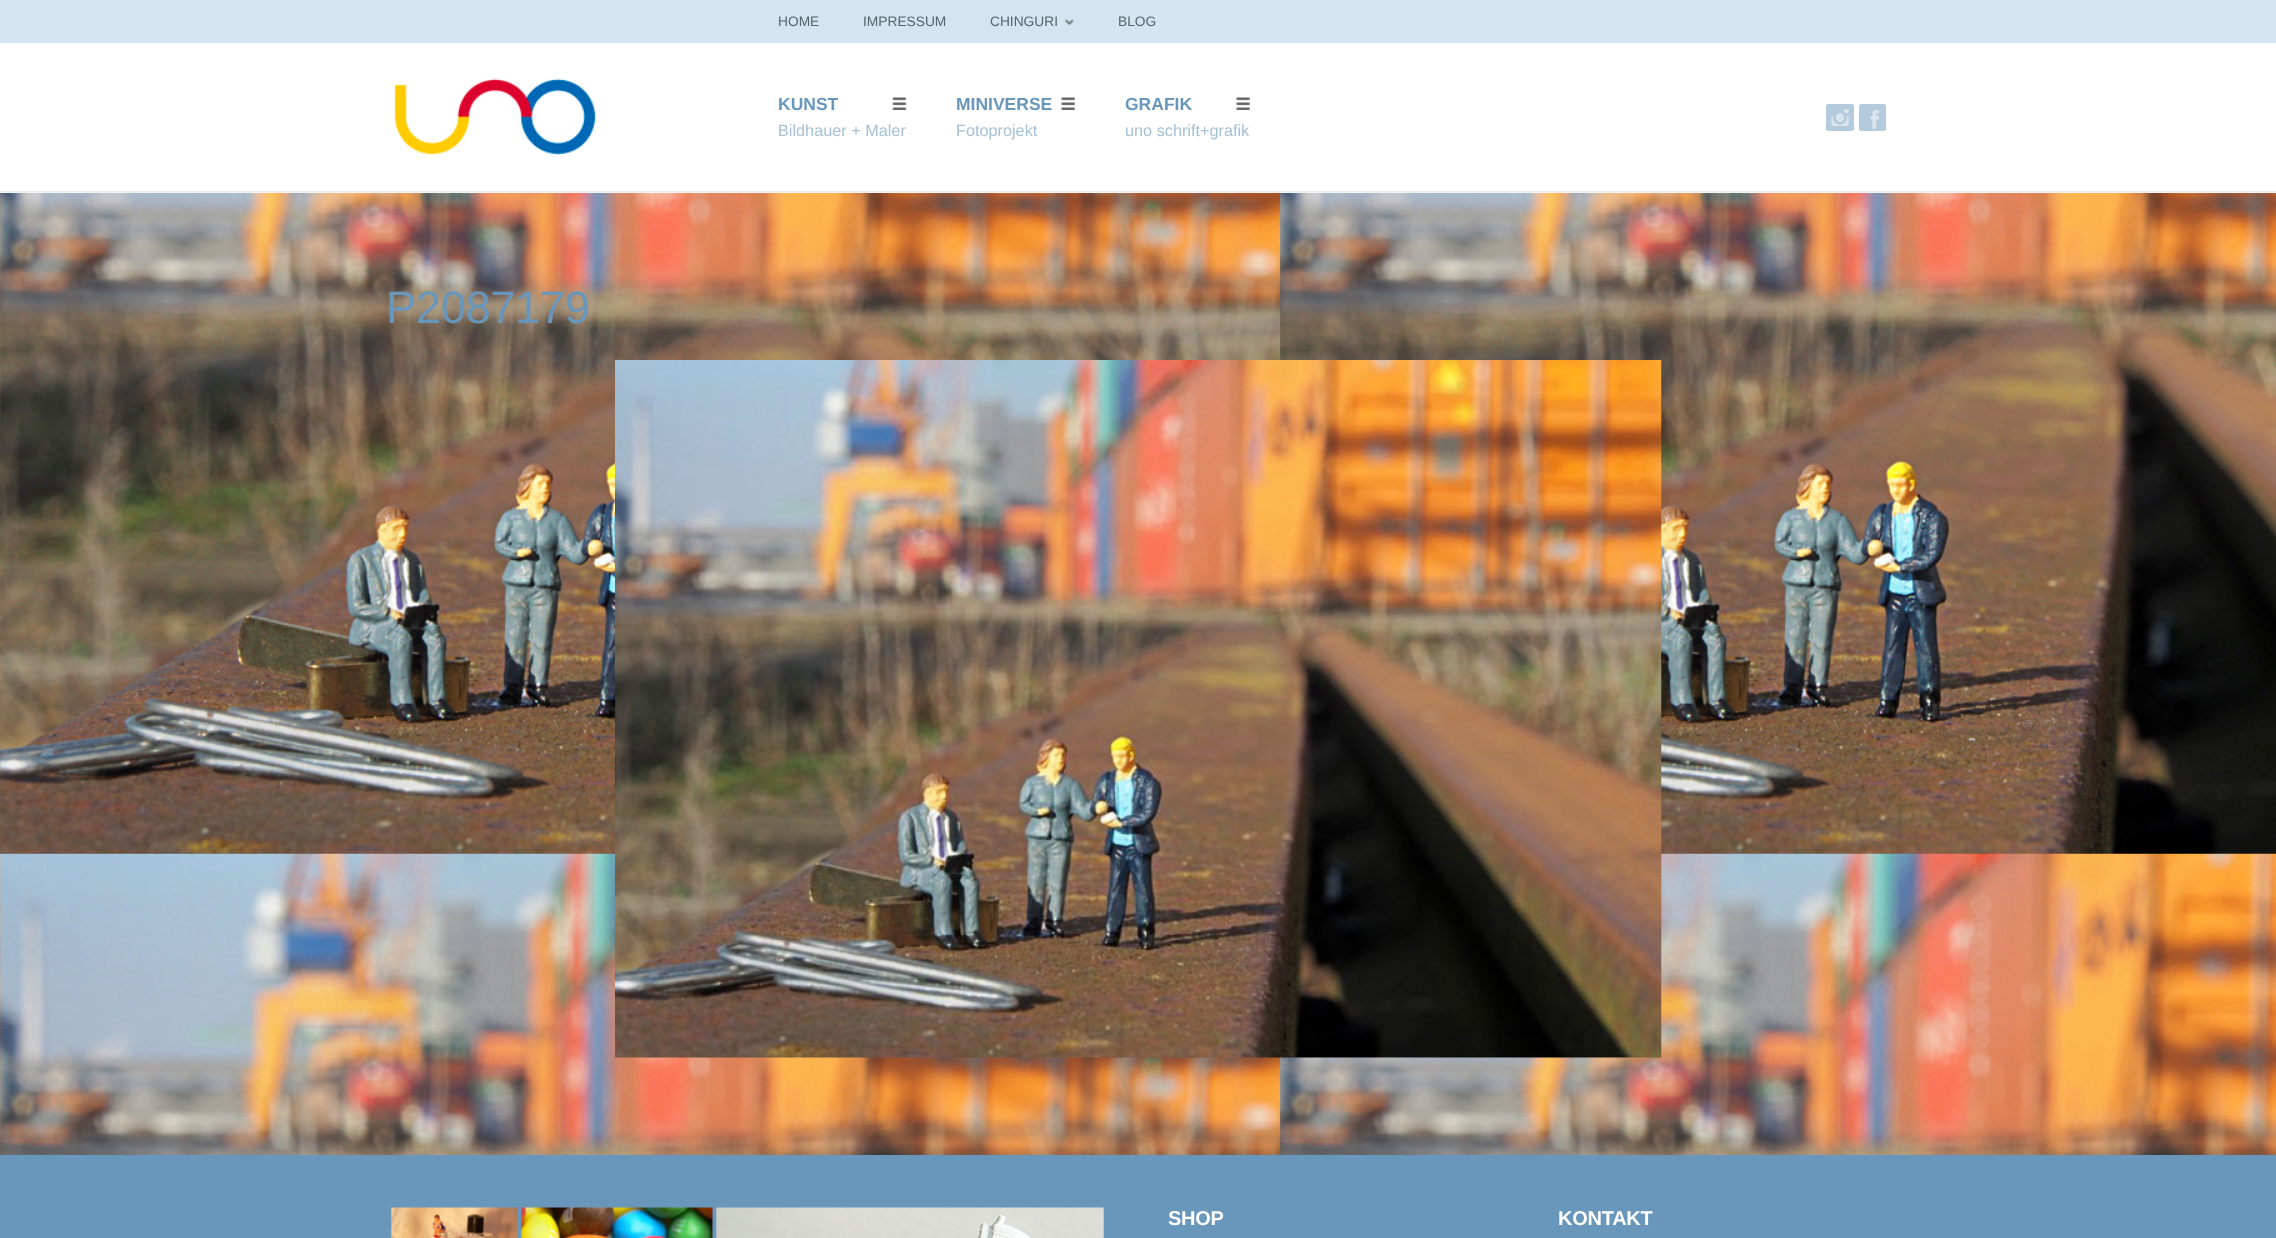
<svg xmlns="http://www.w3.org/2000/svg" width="2276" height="1238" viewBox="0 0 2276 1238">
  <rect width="100%" height="100%" fill="#fff"/>
  <image x="0" y="193" width="2276" height="962" href="img/1.png"/>
  <image x="0" y="191" width="2276" height="2" href="img/2.png"/>
  <path d="M0 0h2276v43H0z" fill="#d2e5f0"/>
  <image x="1065" y="19" width="9" height="7" href="img/3.png"/>
  <image x="389" y="78" width="208" height="78" href="img/4.png"/>
  <image x="892" y="97" width="15" height="13" href="img/5.png"/>
  <image x="1061" y="97" width="14" height="13" href="img/6.png"/>
  <image x="1236" y="97" width="14" height="13" href="img/6.png"/>
  <rect x="1826" y="104" width="28" height="27" rx="2.5" fill="#b4cbdd"/>
  <image x="1831" y="109" width="18" height="17" href="img/7.png"/>
  <rect x="1859" y="104" width="27" height="27" rx="2.5" fill="#b4cbdd"/>
  <image x="1870" y="110" width="10" height="19" href="img/8.png"/>
  <image x="615" y="360" width="1047" height="698" href="img/9.png"/>
  <path d="M0 1155h2276v83H0z" fill="#6997bb"/>
  <image x="391" y="1207" width="127" height="31" href="img/10.png"/>
  <image x="521" y="1207" width="192" height="31" href="img/11.png"/>
  <image x="716" y="1207" width="388" height="31" href="img/12.png"/>
  <g font-family="Liberation Sans" font-size="13.75" fill="#56646f">
    <text x="778" y="26">HOME</text>
    <text x="863" y="26">IMPRESSUM</text>
    <text x="990" y="26">CHINGURI</text>
    <text x="1118" y="26">BLOG</text>
  </g>
  <text x="778" y="110" font-family="Liberation Sans" font-size="17.5" font-weight="bold" fill="#6997bb">KUNST</text>
  <text x="778" y="136" font-family="Liberation Sans" font-size="16.25" fill="#a5c1d6">Bildhauer + Maler</text>
  <text x="956" y="110" font-family="Liberation Sans" font-size="17.5" font-weight="bold" fill="#6997bb">MINIVERSE</text>
  <text x="956" y="136" font-family="Liberation Sans" font-size="16.25" fill="#a5c1d6">Fotoprojekt</text>
  <text x="1125" y="110" font-family="Liberation Sans" font-size="17.5" font-weight="bold" fill="#6997bb">GRAFIK</text>
  <text x="1125" y="136" font-family="Liberation Sans" font-size="16.25" fill="#a5c1d6">uno schrift+grafik</text>
  <text x="386" y="323" font-family="Liberation Sans" font-size="45.5" letter-spacing="-0.5" fill="#6997bb">P2087179</text>
  <g font-family="Liberation Sans" font-size="20" font-weight="bold" letter-spacing="-0.25" fill="#fff">
    <text x="1168" y="1225">SHOP</text>
    <text x="1558" y="1225">KONTAKT</text>
  </g>
</svg>
